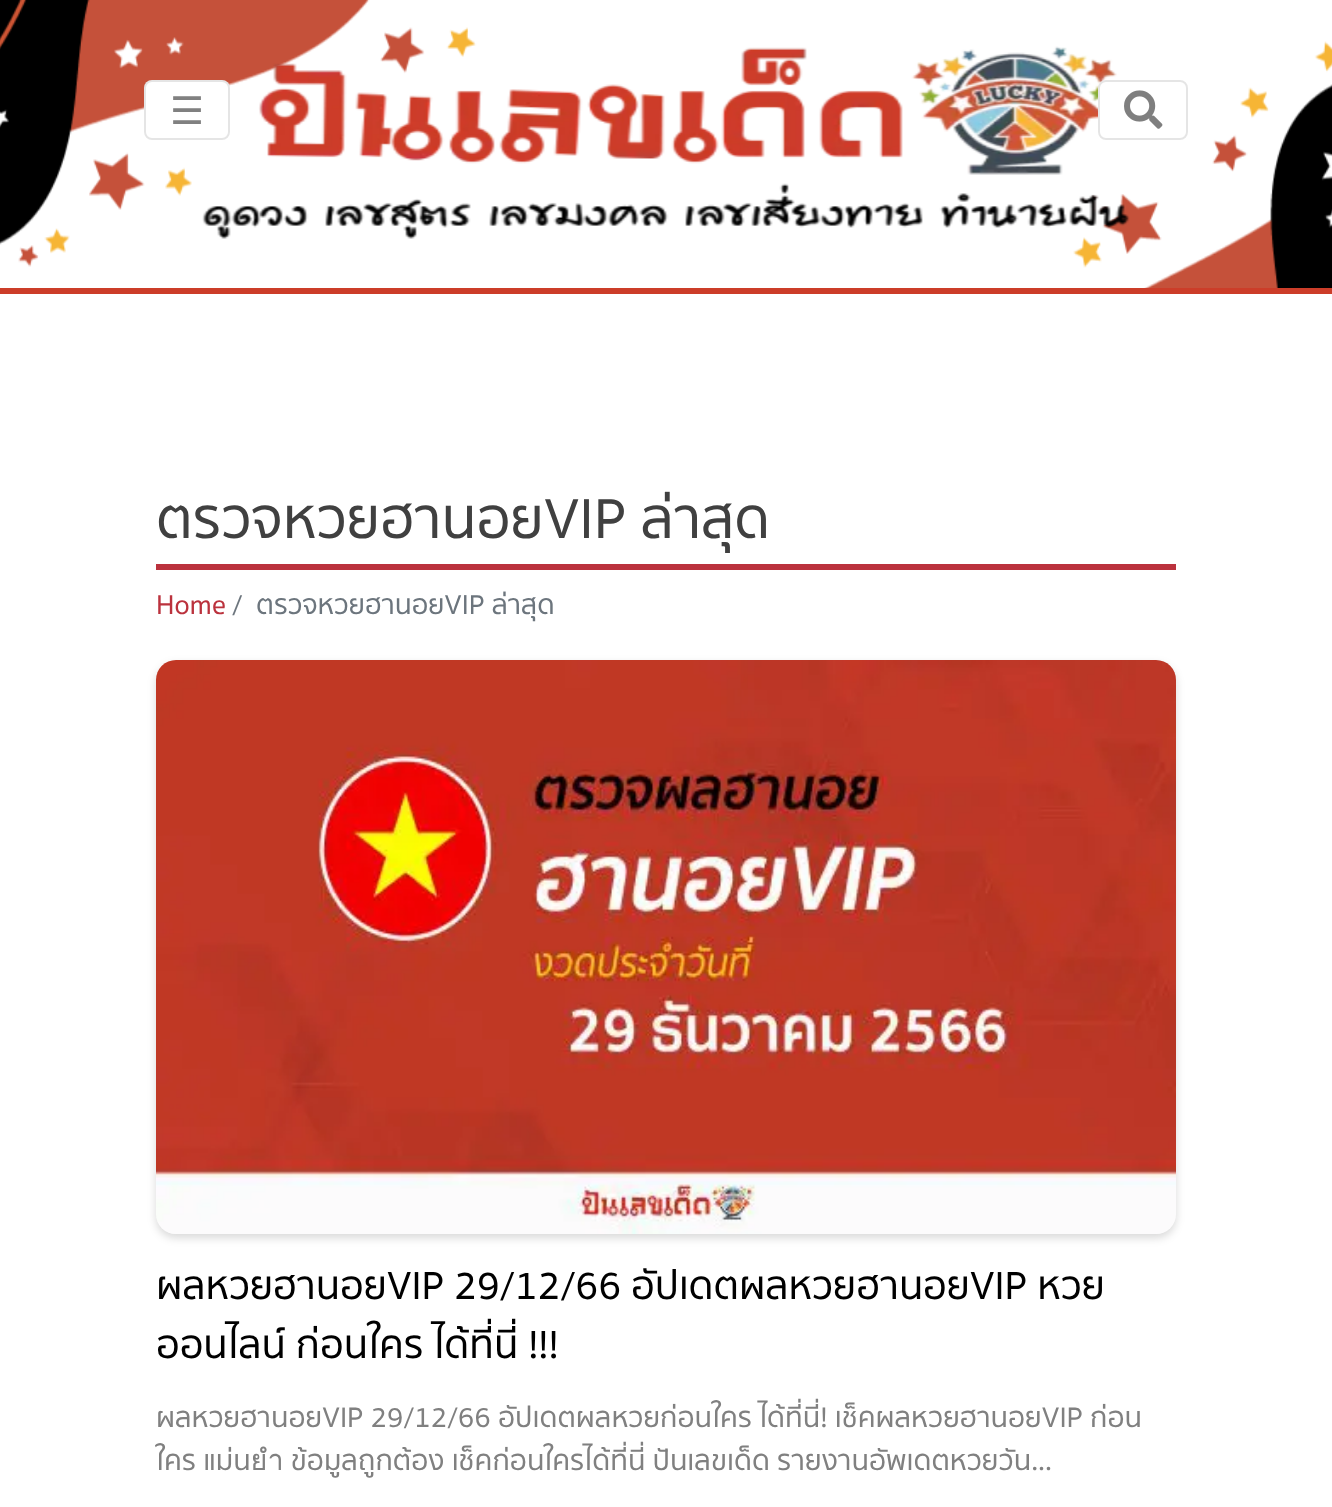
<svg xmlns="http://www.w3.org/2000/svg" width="1332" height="1507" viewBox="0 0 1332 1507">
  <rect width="100%" height="100%" fill="#fff"/>
  <image x="0" y="0" width="1332" height="288" href="img/1.png"/>
  <path d="M0 288h1332v6H0z" fill="#cc3d29"/>
  <image x="202" y="46" width="928" height="193" href="img/2.png"/>
  <rect x="144" y="80" width="86" height="60" rx="8" fill="#fff"/>
  <rect x="145" y="81" width="84" height="58" rx="7" fill="none" stroke="#0000001a" stroke-width="2"/>
  <rect x="1098" y="80" width="90" height="60" rx="8" fill="#fff"/>
  <rect x="1099" y="81" width="88" height="58" rx="7" fill="none" stroke="#0000001a" stroke-width="2"/>
  <image x="1124" y="90" width="39" height="39" href="img/3.png"/>
  <path d="M156 564h1020v6H156z" fill="#bb323d"/>
  <rect x="156" y="664" width="1020" height="574" rx="20" fill="#00000026" filter="blur(4px)"/>
  <rect x="156" y="660" width="1020" height="574" rx="20" fill="#f1f1f1"/>
  <image x="156" y="660" width="1020" height="574" href="img/4.png"/>
  <text x="170" y="124" font-family="DejaVu Sans" font-size="38" fill="#808080">☰</text>
  <text x="156" y="538" font-family="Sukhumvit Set" font-size="57.6" font-weight="500" fill="#404040">ตรวจหวยฮานอยVIP ล่าสุด</text>
  <text x="156" y="614" font-family="Sukhumvit Set" font-size="28" font-weight="500" fill="#bb323d">Home</text>
  <g font-family="Sukhumvit Set" font-size="28" font-weight="500" fill="#6c757d">
    <text x="232" y="614">/</text>
    <text x="256" y="614">ตรวจหวยฮานอยVIP ล่าสุด</text>
  </g>
  <g font-family="Sukhumvit Set" font-size="40" font-weight="500" fill="#000">
    <text x="156" y="1299">ผลหวยฮานอยVIP 29/12/66 อัปเดตผลหวยฮานอยVIP หวย</text>
    <text x="156" y="1358">ออนไลน์ ก่อนใคร ได้ที่นี่ !!!</text>
  </g>
  <g font-family="Sukhumvit Set" font-size="28.8" font-weight="500" fill="#808080">
    <text x="156" y="1427">ผลหวยฮานอยVIP 29/12/66 อัปเดตผลหวยก่อนใคร ได้ที่นี่! เช็คผลหวยฮานอยVIP ก่อน</text>
    <text x="156" y="1470">ใคร แม่นยำ ข้อมูลถูกต้อง เช็คก่อนใครได้ที่นี่ ปันเลขเด็ด รายงานอัพเดตหวยวัน...</text>
  </g>
</svg>
